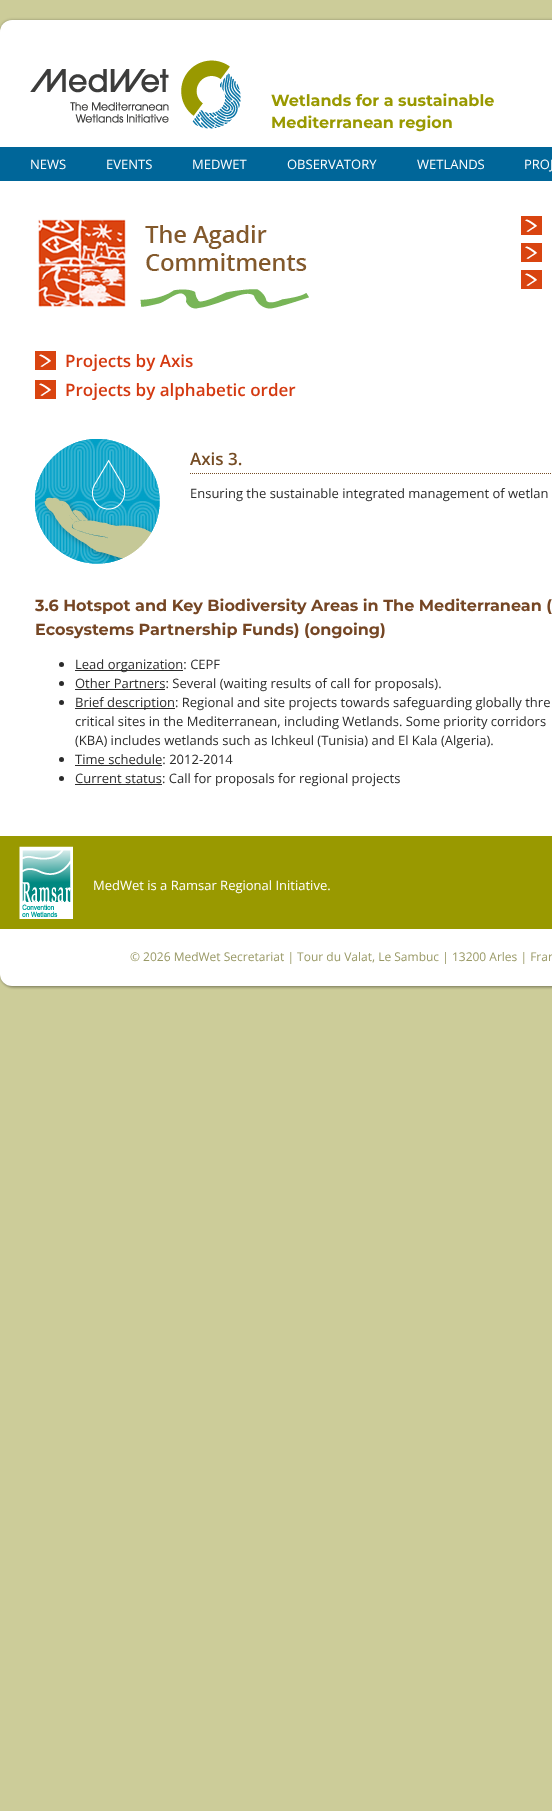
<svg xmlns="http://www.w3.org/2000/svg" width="552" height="1811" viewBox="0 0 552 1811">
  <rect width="100%" height="100%" fill="#cc9"/>
  <rect x="2" y="22" width="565" height="966" rx="12" fill="#00000033" filter="blur(1px)"/>
  <rect y="20" width="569" height="966" rx="12" fill="#0000004d" filter="blur(1.5px)"/>
  <rect y="20" width="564" height="966" rx="12" fill="#fff"/>
  <image x="30" y="60" width="211" height="69" href="img/1.png"/>
  <path d="M0 147h552v34H0z" fill="#069"/>
  <image x="38" y="219" width="271" height="90" href="img/2.png"/>
  <image x="521" y="216" width="21" height="19" href="img/3.png"/>
  <image x="521" y="243" width="21" height="19" href="img/3.png"/>
  <image x="521" y="270" width="21" height="19" href="img/3.png"/>
  <image x="35" y="351" width="21" height="19" href="img/3.png"/>
  <image x="35" y="380" width="21" height="19" href="img/3.png"/>
  <image x="35" y="439" width="125" height="125" href="img/4.png"/>
  <image x="35" y="439" width="125" height="125" href="img/5.png"/>
  <path d="M190 473.5H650" fill="none" stroke="#754c24" stroke-dasharray="1 1"/>
  <circle cx="61.5" cy="664.5" r="2.5" fill="#2b2b2b"/>
  <path d="M75 670h108v1H75z" fill="#2b2b2b"/>
  <circle cx="61.5" cy="683.5" r="2.5" fill="#2b2b2b"/>
  <path d="M75 689h90v1H75z" fill="#2b2b2b"/>
  <circle cx="61.5" cy="702.5" r="2.5" fill="#2b2b2b"/>
  <path d="M75 708h100v1H75z" fill="#2b2b2b"/>
  <circle cx="61.5" cy="759.5" r="2.5" fill="#2b2b2b"/>
  <path d="M75 765h87v1H75z" fill="#2b2b2b"/>
  <circle cx="61.5" cy="778.5" r="2.5" fill="#2b2b2b"/>
  <path d="M75 784h87v1H75z" fill="#2b2b2b"/>
  <path d="M0 836h552v93H0z" fill="#990"/>
  <image x="19" y="846" width="54" height="73" href="img/6.png"/>
  <g font-family="Montserrat" font-size="16" font-weight="bold" fill="#990">
    <text x="271" y="106">Wetlands for a sustainable</text>
    <text x="271" y="128">Mediterranean region</text>
  </g>
  <g font-family="Open Sans" font-size="13" fill="#fff">
    <text x="30" y="169">NEWS</text>
    <text x="106" y="169">EVENTS</text>
    <text x="192" y="169">MEDWET</text>
    <text x="287" y="169">OBSERVATORY</text>
    <text x="417" y="169">WETLANDS</text>
    <text x="524" y="169">PROJ</text>
  </g>
  <g font-family="Open Sans" font-size="17" font-weight="600" fill="#d43910">
    <text x="65" y="367">Projects by Axis</text>
    <text x="65" y="396">Projects by alphabetic order</text>
  </g>
  <text x="190" y="465" font-family="Open Sans" font-size="17" font-weight="600" fill="#754c24">Axis 3.</text>
  <text x="190" y="498" font-family="Open Sans" font-size="13" fill="#2b2b2b">Ensuring the sustainable integrated management of wetlan</text>
  <g font-family="Montserrat" font-size="16" font-weight="bold" fill="#754624">
    <text x="35" y="611">3.6 Hotspot and Key Biodiversity Areas in The Mediterranean (</text>
    <text x="35" y="635">Ecosystems Partnership Funds) (ongoing)</text>
  </g>
  <g font-family="Open Sans" font-size="13" fill="#2b2b2b">
    <text x="75" y="669">Lead organization: CEPF</text>
    <text x="75" y="688">Other Partners: Several (waiting results of call for proposals).</text>
    <text x="75" y="707">Brief description: Regional and site projects towards safeguarding globally thre</text>
    <text x="75" y="726">critical sites in the Mediterranean, including Wetlands. Some priority corridors</text>
    <text x="75" y="745">(KBA) includes wetlands such as Ichkeul (Tunisia) and El Kala (Algeria).</text>
    <text x="75" y="764">Time schedule: 2012-2014</text>
    <text x="75" y="783">Current status: Call for proposals for regional projects</text>
  </g>
  <text x="93" y="890" font-family="Open Sans" font-size="13" fill="#fff">MedWet is a Ramsar Regional Initiative.</text>
  <text x="130" y="961" font-family="Open Sans" font-size="12" fill="#996">© 2026 MedWet Secretariat | Tour du Valat, Le Sambuc | 13200 Arles | Fran</text>
</svg>
